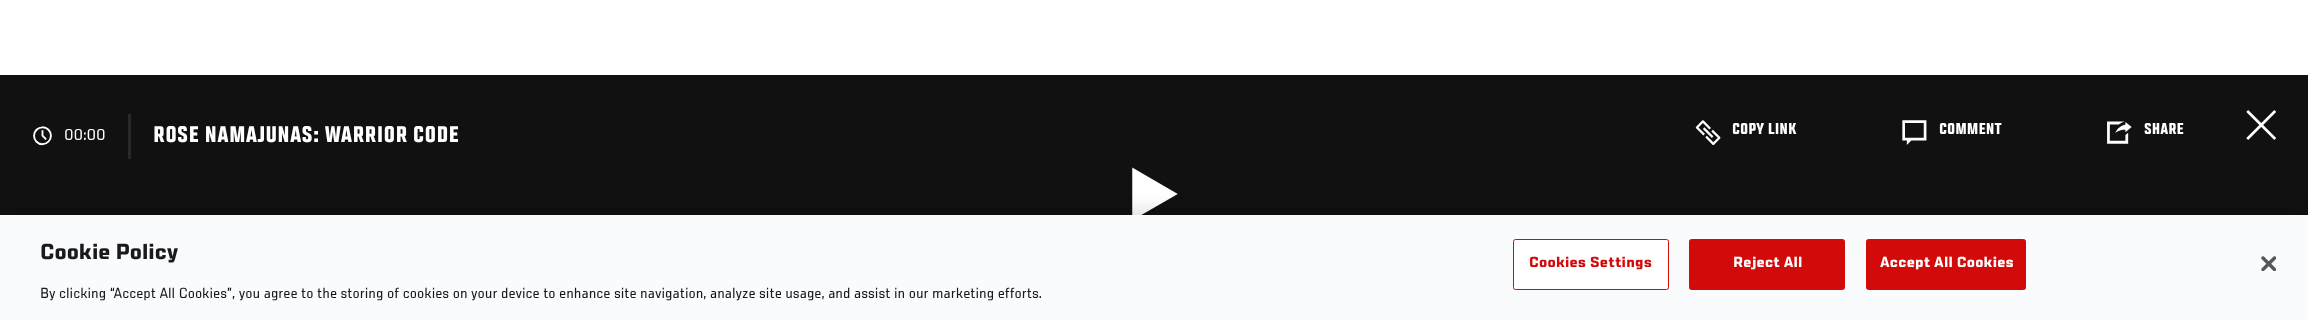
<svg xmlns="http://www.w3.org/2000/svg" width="2308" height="320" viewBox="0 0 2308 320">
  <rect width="100%" height="100%" fill="#fff"/>
  <path d="M0 75h2308v140H0z" fill="#111"/>
  <image x="33" y="126" width="19" height="20" href="img/1.png"/>
  <path d="M128 114h3v45H128z" fill="#292929"/>
  <image x="1695" y="120" width="26" height="25" href="img/2.png"/>
  <image x="1902" y="120" width="25" height="25" href="img/3.png"/>
  <image x="2107" y="121" width="25" height="23" href="img/4.png"/>
  <image x="2246" y="110" width="30" height="30" href="img/5.png"/>
  <image x="1132" y="167" width="46" height="48" href="img/6.png"/>
  <path d="M0 215h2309v105H0z" fill="#00000033" filter="blur(11px)"/>
  <path d="M0 215h2308v105H0z" fill="#fafbfd"/>
  <rect x="1513.5" y="239.5" width="155" height="50" rx="2" fill="#fff" stroke="#d20a0a"/>
  <rect x="1689.5" y="239.5" width="155" height="50" rx="2" fill="#d20a0a" stroke="#d20a0a"/>
  <rect x="1866.5" y="239.5" width="159" height="50" rx="2" fill="#d20a0a" stroke="#d20a0a"/>
  <image x="2261" y="256" width="15" height="15" href="img/7.png"/>
  <text x="64" y="140" font-family="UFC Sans" font-size="17.5" fill="#fff">00:00</text>
  <text x="153" y="142" font-family="UFC Sans" font-size="25" font-weight="bold" letter-spacing="0.25" fill="#fff">ROSE NAMAJUNAS: WARRIOR CODE</text>
  <g font-family="UFC Sans" font-size="17.5" font-weight="bold" fill="#fff">
    <text x="1732" y="134">COPY LINK</text>
    <text x="1939" y="134">COMMENT</text>
    <text x="2144" y="134">SHARE</text>
  </g>
  <text x="40" y="259" font-family="'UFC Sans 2'" font-size="24" font-weight="bold" fill="#19191e">Cookie Policy</text>
  <text x="40" y="298" font-family="UFC Sans" font-size="16.25" fill="#19191e">By clicking “Accept All Cookies”, you agree to the storing of cookies on your device to enhance site navigation, analyze site usage, and assist in our marketing efforts.</text>
  <text x="1529" y="267" font-family="'UFC Sans 2'" font-size="16.25" font-weight="bold" letter-spacing="0.2" fill="#d20a0a">Cookies Settings</text>
  <g font-family="'UFC Sans 2'" font-size="16.25" font-weight="bold" letter-spacing="0.2" fill="#fff">
    <text x="1733" y="267">Reject All</text>
    <text x="1880" y="267">Accept All Cookies</text>
  </g>
</svg>
